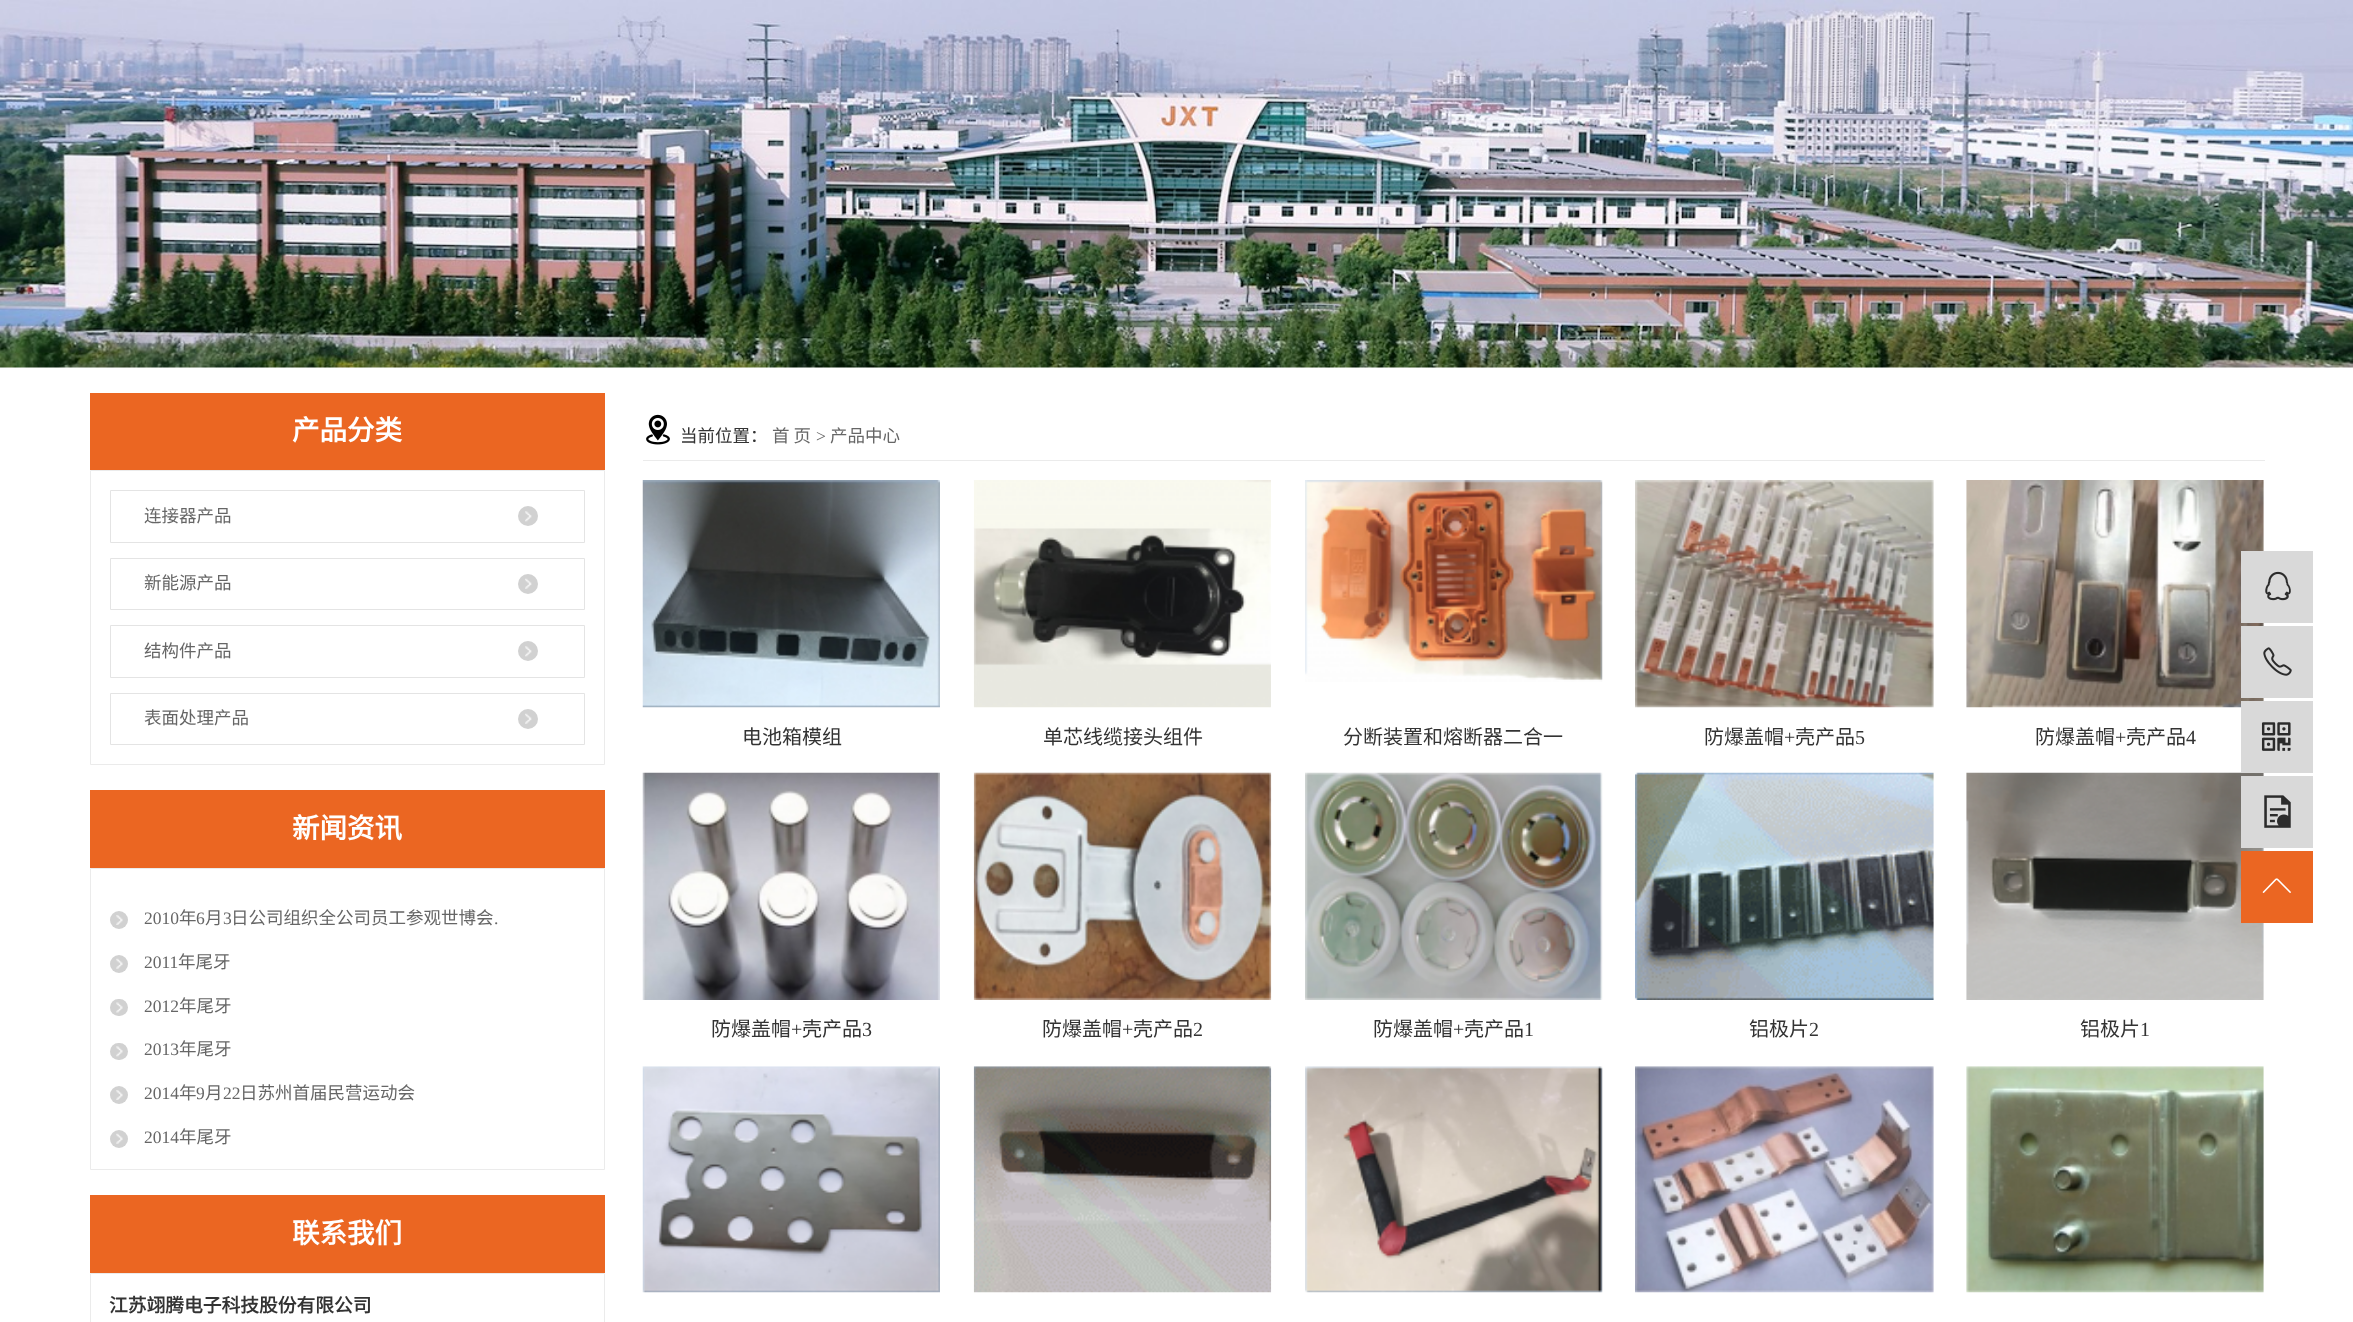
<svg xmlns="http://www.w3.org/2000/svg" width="2353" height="1322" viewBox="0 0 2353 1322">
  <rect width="100%" height="100%" fill="#fff"/>
  <image x="0" y="0" width="2353" height="368" href="img/1.png"/>
  <path d="M90 393h515v77H90z" fill="#eb6622"/>
  <path d="M90.5 470.5h514v294H90.5z" fill="none" stroke="#ebebeb"/>
  <path d="M110.5 490.5h474v52H110.5z" fill="none" stroke="#e4e4e4"/>
  <circle cx="528" cy="516" r="10" fill="#d1d1d1"/>
  <image x="525" y="511" width="7" height="11" href="img/2.png"/>
  <path d="M110.5 558.5h474v51H110.5z" fill="none" stroke="#e4e4e4"/>
  <circle cx="528" cy="584" r="10" fill="#d1d1d1"/>
  <image x="525" y="578" width="7" height="11" href="img/3.png"/>
  <path d="M110.5 625.5h474v52H110.5z" fill="none" stroke="#e4e4e4"/>
  <circle cx="528" cy="651" r="10" fill="#d1d1d1"/>
  <image x="525" y="646" width="7" height="11" href="img/2.png"/>
  <path d="M110.5 693.5h474v51H110.5z" fill="none" stroke="#e4e4e4"/>
  <circle cx="528" cy="719" r="10" fill="#d1d1d1"/>
  <image x="525" y="713" width="7" height="11" href="img/3.png"/>
  <path d="M90 790h515v78H90z" fill="#eb6622"/>
  <path d="M90.5 868.5h514v301H90.5z" fill="none" stroke="#ebebeb"/>
  <circle cx="119" cy="920" r="9" fill="#d1d1d1"/>
  <image x="116" y="915" width="7" height="10" href="img/4.png"/>
  <circle cx="119" cy="964" r="9" fill="#d1d1d1"/>
  <image x="116" y="958" width="7" height="11" href="img/5.png"/>
  <rect x="110" y="999" width="18" height="17" rx="8.5" fill="#d1d1d1"/>
  <image x="116" y="1002" width="7" height="11" href="img/6.png"/>
  <rect x="110" y="1043" width="18" height="17" rx="8.5" fill="#d1d1d1"/>
  <image x="116" y="1046" width="7" height="11" href="img/7.png"/>
  <circle cx="119" cy="1095" r="9" fill="#d1d1d1"/>
  <image x="116" y="1090" width="7" height="10" href="img/4.png"/>
  <circle cx="119" cy="1139" r="9" fill="#d1d1d1"/>
  <image x="116" y="1133" width="7" height="11" href="img/5.png"/>
  <path d="M90 1195h515v78H90z" fill="#eb6622"/>
  <path d="M90.5 1273.5h514v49H90.5z" fill="none" stroke="#ebebeb"/>
  <path d="M643 460h1622v1H643z" fill="#ebebeb"/>
  <image x="646" y="414" width="24" height="31" href="img/8.png"/>
  <image x="642" y="480" width="298" height="228" href="img/9.png"/>
  <image x="973" y="480" width="298" height="228" href="img/10.png"/>
  <image x="1305" y="480" width="298" height="202" href="img/11.png"/>
  <image x="1635" y="480" width="299" height="228" href="img/12.png"/>
  <image x="1966" y="480" width="298" height="228" href="img/13.png"/>
  <image x="642" y="772" width="298" height="228" href="img/14.png"/>
  <image x="973" y="772" width="299" height="228" href="img/15.png"/>
  <image x="1305" y="772" width="298" height="228" href="img/16.png"/>
  <image x="1635" y="772" width="299" height="228" href="img/17.png"/>
  <image x="1966" y="772" width="298" height="228" href="img/18.png"/>
  <image x="642" y="1066" width="298" height="227" href="img/19.png"/>
  <image x="973" y="1066" width="299" height="227" href="img/20.png"/>
  <image x="1305" y="1066" width="298" height="227" href="img/21.png"/>
  <image x="1635" y="1066" width="299" height="227" href="img/22.png"/>
  <image x="1966" y="1066" width="298" height="227" href="img/23.png"/>
  <path d="M2241 551h72v72H2241z" fill="#d9d9d9"/>
  <image x="2265" y="571" width="26" height="30" href="img/24.png"/>
  <path d="M2241 626h72v72H2241z" fill="#d9d9d9"/>
  <image x="2263" y="647" width="29" height="29" href="img/25.png"/>
  <path d="M2241 701h72v72H2241z" fill="#d9d9d9"/>
  <image x="2261" y="722" width="30" height="29" href="img/26.png"/>
  <path d="M2241 776h72v72H2241z" fill="#d9d9d9"/>
  <image x="2264" y="795" width="27" height="33" href="img/27.png"/>
  <path d="M2241 851h72v72H2241z" fill="#eb6622"/>
  <image x="2262" y="878" width="29" height="15" href="img/28.png"/>
  <text x="292" y="440" font-family="Noto Sans CJK SC" font-size="27.5" font-weight="bold" fill="#fff">产品分类</text>
  <g font-family="Noto Sans CJK SC" font-size="17.5" fill="#666">
    <text x="144" y="522">连接器产品</text>
    <text x="144" y="589">新能源产品</text>
    <text x="144" y="657">结构件产品</text>
    <text x="144" y="724">表面处理产品</text>
  </g>
  <text x="292" y="838" font-family="Noto Sans CJK SC" font-size="27.5" font-weight="bold" fill="#fff">新闻资讯</text>
  <text x="144" y="924" font-family="Liberation Serif" font-size="17.5" fill="#666">2010</text>
  <text x="179" y="924" font-family="Noto Sans CJK SC" font-size="17.5" fill="#666">年</text>
  <text x="196" y="924" font-family="Liberation Serif" font-size="17.5" fill="#666">6</text>
  <text x="205" y="924" font-family="Noto Sans CJK SC" font-size="17.5" fill="#666">月</text>
  <text x="223" y="924" font-family="Liberation Serif" font-size="17.5" fill="#666">3</text>
  <text x="231" y="924" font-family="Noto Sans CJK SC" font-size="17.5" fill="#666">日公司组织全公司员工参观世博会</text>
  <g font-family="Liberation Serif" font-size="17.5" fill="#666">
    <text x="494" y="924">.</text>
    <text x="144" y="968">2011</text>
  </g>
  <text x="178" y="968" font-family="Noto Sans CJK SC" font-size="17.5" fill="#666">年尾牙</text>
  <text x="144" y="1012" font-family="Liberation Serif" font-size="17.5" fill="#666">2012</text>
  <text x="179" y="1012" font-family="Noto Sans CJK SC" font-size="17.5" fill="#666">年尾牙</text>
  <text x="144" y="1055" font-family="Liberation Serif" font-size="17.5" fill="#666">2013</text>
  <text x="179" y="1055" font-family="Noto Sans CJK SC" font-size="17.5" fill="#666">年尾牙</text>
  <text x="144" y="1099" font-family="Liberation Serif" font-size="17.5" fill="#666">2014</text>
  <text x="179" y="1099" font-family="Noto Sans CJK SC" font-size="17.5" fill="#666">年</text>
  <text x="196" y="1099" font-family="Liberation Serif" font-size="17.5" fill="#666">9</text>
  <text x="205" y="1099" font-family="Noto Sans CJK SC" font-size="17.5" fill="#666">月</text>
  <text x="223" y="1099" font-family="Liberation Serif" font-size="17.5" fill="#666">22</text>
  <text x="240" y="1099" font-family="Noto Sans CJK SC" font-size="17.5" fill="#666">日苏州首届民营运动会</text>
  <text x="144" y="1143" font-family="Liberation Serif" font-size="17.5" fill="#666">2014</text>
  <text x="179" y="1143" font-family="Noto Sans CJK SC" font-size="17.5" fill="#666">年尾牙</text>
  <text x="292" y="1243" font-family="Noto Sans CJK SC" font-size="27.5" font-weight="bold" fill="#fff">联系我们</text>
  <text x="109" y="1312" font-family="Noto Sans CJK SC" font-size="18.75" font-weight="bold" fill="#333">江苏翊腾电子科技股份有限公司</text>
  <text x="680" y="442" font-family="Noto Sans CJK SC" font-size="17.5" fill="#333">当前位置：</text>
  <text x="772" y="442" font-family="Noto Sans CJK SC" font-size="17.5" fill="#666">首 页</text>
  <text x="816" y="442" font-family="Liberation Serif" font-size="17.5" fill="#666">&gt;</text>
  <text x="830" y="442" font-family="Noto Sans CJK SC" font-size="17.5" fill="#666">产品中心</text>
  <g font-family="Noto Sans CJK SC" font-size="20" fill="#333">
    <text x="742" y="744">电池箱模组</text>
    <text x="1043" y="744">单芯线缆接头组件</text>
    <text x="1343" y="744">分断装置和熔断器二合一</text>
    <text x="1704" y="744">防爆盖帽</text>
  </g>
  <text x="1784" y="744" font-family="Liberation Serif" font-size="20" fill="#333">+</text>
  <text x="1795" y="744" font-family="Noto Sans CJK SC" font-size="20" fill="#333">壳产品</text>
  <text x="1855" y="744" font-family="Liberation Serif" font-size="20" fill="#333">5</text>
  <text x="2035" y="744" font-family="Noto Sans CJK SC" font-size="20" fill="#333">防爆盖帽</text>
  <text x="2115" y="744" font-family="Liberation Serif" font-size="20" fill="#333">+</text>
  <text x="2126" y="744" font-family="Noto Sans CJK SC" font-size="20" fill="#333">壳产品</text>
  <text x="2186" y="744" font-family="Liberation Serif" font-size="20" fill="#333">4</text>
  <text x="711" y="1036" font-family="Noto Sans CJK SC" font-size="20" fill="#333">防爆盖帽</text>
  <text x="791" y="1036" font-family="Liberation Serif" font-size="20" fill="#333">+</text>
  <text x="802" y="1036" font-family="Noto Sans CJK SC" font-size="20" fill="#333">壳产品</text>
  <text x="862" y="1036" font-family="Liberation Serif" font-size="20" fill="#333">3</text>
  <text x="1042" y="1036" font-family="Noto Sans CJK SC" font-size="20" fill="#333">防爆盖帽</text>
  <text x="1122" y="1036" font-family="Liberation Serif" font-size="20" fill="#333">+</text>
  <text x="1133" y="1036" font-family="Noto Sans CJK SC" font-size="20" fill="#333">壳产品</text>
  <text x="1193" y="1036" font-family="Liberation Serif" font-size="20" fill="#333">2</text>
  <text x="1373" y="1036" font-family="Noto Sans CJK SC" font-size="20" fill="#333">防爆盖帽</text>
  <text x="1453" y="1036" font-family="Liberation Serif" font-size="20" fill="#333">+</text>
  <text x="1464" y="1036" font-family="Noto Sans CJK SC" font-size="20" fill="#333">壳产品</text>
  <text x="1524" y="1036" font-family="Liberation Serif" font-size="20" fill="#333">1</text>
  <text x="1749" y="1036" font-family="Noto Sans CJK SC" font-size="20" fill="#333">铝极片</text>
  <text x="1809" y="1036" font-family="Liberation Serif" font-size="20" fill="#333">2</text>
  <text x="2080" y="1036" font-family="Noto Sans CJK SC" font-size="20" fill="#333">铝极片</text>
  <text x="2140" y="1036" font-family="Liberation Serif" font-size="20" fill="#333">1</text>
</svg>
